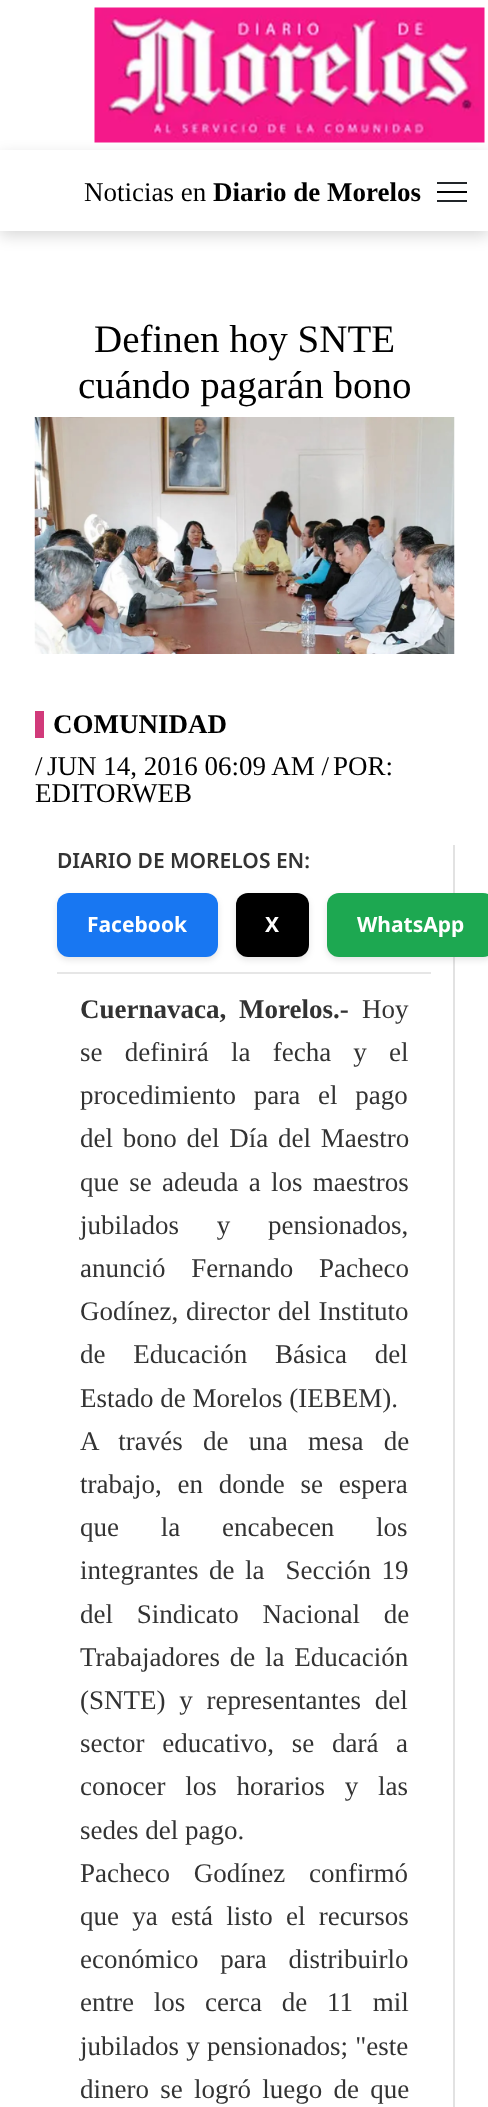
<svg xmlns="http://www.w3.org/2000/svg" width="488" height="2107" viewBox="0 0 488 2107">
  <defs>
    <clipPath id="clip1"><path d="M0 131H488V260H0ZM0 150H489V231H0Z" clip-rule="evenodd"/></clipPath>
  </defs>
  <rect width="100%" height="100%" fill="#fff"/>
  <g clip-path="url(#clip1)">
    <path d="M0 155h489v81H0z" fill="#00000026" filter="blur(7.5px)"/>
  </g>
  <image x="94" y="7" width="391" height="136" href="img/1.png"/>
  <path d="M437 191h30v2H437z" fill="#000"/>
  <path d="M437 182h30v2H437z" fill="#212529"/>
  <path d="M437 200h30v2H437z" fill="#212529"/>
  <image x="34" y="417" width="421" height="237" href="img/2.png"/>
  <path d="M35 711h9v27H35z" fill="#d13a7a"/>
  <path d="M453 845h2v1262H453z" fill="#e2e2e2"/>
  <rect x="57" y="896" width="161" height="64" rx="12" fill="#0000001a" filter="blur(3px)"/>
  <rect x="57" y="893" width="161" height="64" rx="12" fill="#1877f2"/>
  <rect x="236" y="896" width="73" height="64" rx="12" fill="#0000001a" filter="blur(3px)"/>
  <rect x="236" y="893" width="73" height="64" rx="12" fill="#000"/>
  <rect x="327" y="896" width="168" height="64" rx="12" fill="#0000001a" filter="blur(3px)"/>
  <rect x="327" y="893" width="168" height="64" rx="12" fill="#1da851"/>
  <path d="M57 972h374v2H57z" fill="#e6e6e6"/>
  <text x="84" y="201" font-family="Liberation Serif" font-size="27" fill="#000">Noticias en</text>
  <text x="213" y="201" font-family="Liberation Serif" font-size="27" font-weight="bold" fill="#000">Diario de Morelos</text>
  <g font-family="Liberation Serif" font-size="39" fill="#000">
    <text x="94" y="352">Definen hoy SNTE</text>
    <text x="78" y="398">cuándo pagarán bono</text>
  </g>
  <text x="53" y="733" font-family="Liberation Serif" font-size="27" font-weight="bold" fill="#000">COMUNIDAD</text>
  <g font-family="Liberation Serif" font-size="27" fill="#000">
    <text x="35" y="775">/</text>
    <text x="47" y="775">JUN 14, 2016 06:09 AM /</text>
    <text x="333" y="775">POR:</text>
    <text x="35" y="802">EDITORWEB</text>
  </g>
  <text x="57" y="868" font-family="Noto Sans" font-size="21" font-weight="600" fill="#333">DIARIO DE MORELOS EN:</text>
  <g font-family="Noto Sans" font-size="21" font-weight="bold" fill="#fff">
    <text x="87" y="932">Facebook</text>
    <text x="265" y="932">X</text>
    <text x="357" y="932">WhatsApp</text>
  </g>
  <text x="80" y="1018" word-spacing="6" font-family="Liberation Serif" font-size="27" font-weight="bold" fill="#333">Cuernavaca, Morelos.-</text>
  <g font-family="Liberation Serif" font-size="27" fill="#333">
    <text x="362" y="1018">Hoy</text>
    <text x="80" y="1061" word-spacing="15.5">se definirá la fecha y el</text>
    <text x="80" y="1104" word-spacing="11">procedimiento para el pago</text>
    <text x="80" y="1147" word-spacing="3">del bono del Día del Maestro</text>
    <text x="80" y="1191" word-spacing="3.5">que se adeuda a los maestros</text>
    <text x="80" y="1234" word-spacing="31">jubilados y pensionados,</text>
    <text x="80" y="1277" word-spacing="19">anunció Fernando Pacheco</text>
    <text x="80" y="1320" word-spacing="1">Godínez, director del Instituto</text>
    <text x="80" y="1363" word-spacing="21">de Educación Básica del</text>
    <text x="80" y="1407">Estado de Morelos (IEBEM).</text>
    <text x="80" y="1450" word-spacing="13.5">A través de una mesa de</text>
    <text x="80" y="1493" word-spacing="9">trabajo, en donde se espera</text>
    <text x="80" y="1536" word-spacing="35">que la encabecen los</text>
    <text x="80" y="1579" word-spacing="3.75" xml:space="preserve">integrantes de la  Sección 19</text>
    <text x="80" y="1623" word-spacing="17">del Sindicato Nacional de</text>
    <text x="80" y="1666" word-spacing="3">Trabajadores de la Educación</text>
    <text x="80" y="1709" word-spacing="7">(SNTE) y representantes del</text>
    <text x="80" y="1752" word-spacing="11">sector educativo, se dará a</text>
    <text x="80" y="1795" word-spacing="13">conocer los horarios y las</text>
    <text x="80" y="1839">sedes del pago.</text>
    <text x="80" y="1882" word-spacing="17">Pacheco Godínez confirmó</text>
    <text x="80" y="1925" word-spacing="6.5">que ya está listo el recursos</text>
    <text x="80" y="1968" word-spacing="15">económico para distribuirlo</text>
    <text x="80" y="2011" word-spacing="13">entre los cerca de 11 mil</text>
    <text x="80" y="2055" word-spacing="0.5">jubilados y pensionados; "este</text>
    <text x="80" y="2098" word-spacing="4.5">dinero se logró luego de que</text>
  </g>
</svg>
